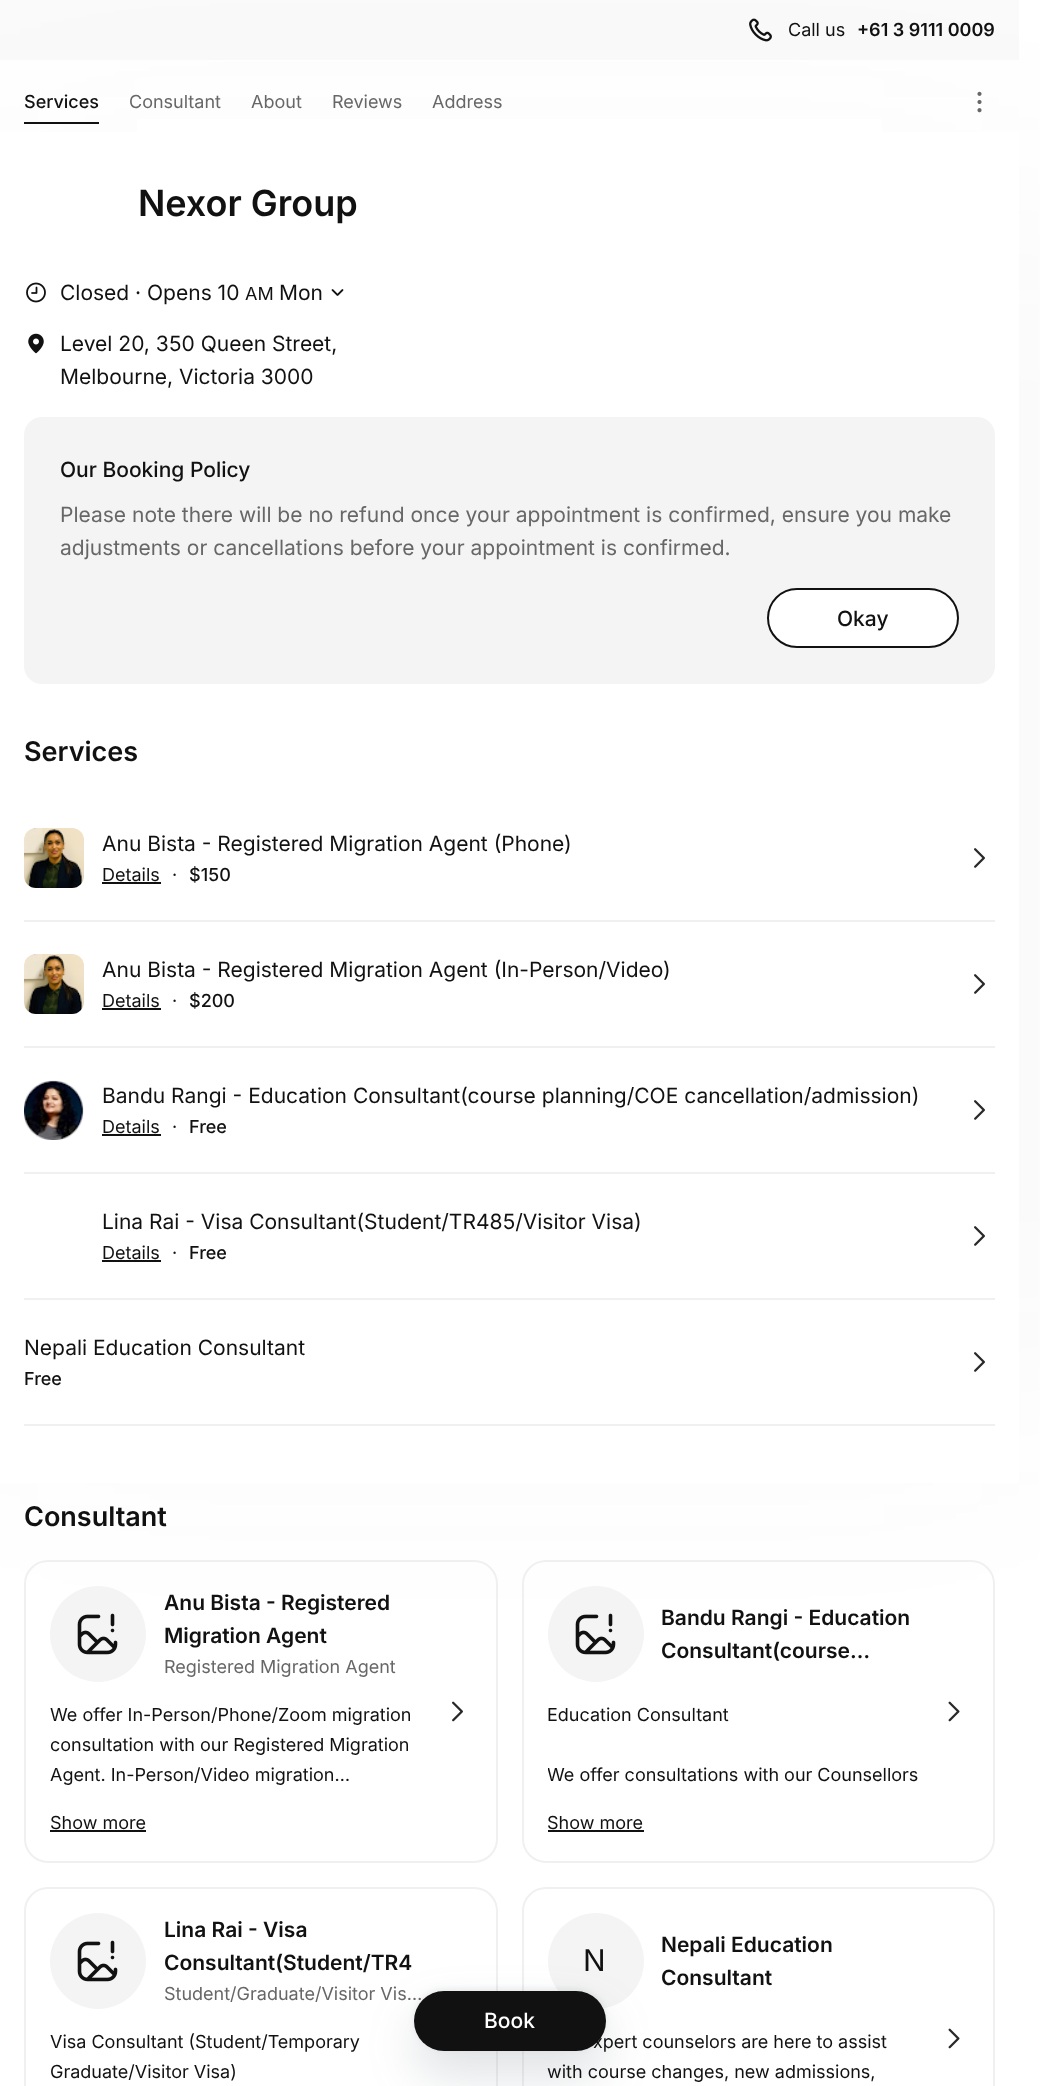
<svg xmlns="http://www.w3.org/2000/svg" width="1040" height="2086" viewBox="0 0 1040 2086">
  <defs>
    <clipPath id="clip1"><path d="M662 1601h259v66H662z"/></clipPath>
    <clipPath id="clip2"><path d="M548 1700h373v90H548z"/></clipPath>
    <clipPath id="clip3"><path d="M662 1928h259v66H662z"/></clipPath>
  </defs>
  <rect width="100%" height="100%" fill="#fff"/>
  <path d="M0 0h1019v60H0z" fill="#fafafa"/>
  <rect y="210" width="1019" height="1182" rx="18" fill="#3f44470f" filter="blur(120px)"/>
  <image x="749" y="18" width="23" height="24" href="img/1.png"/>
  <path d="M0 132h1019v1351H0z" fill="#fff"/>
  <path d="M137 119h745v13H137z" fill="#fff"/>
  <path d="M24 122h75v2H24z" fill="#111"/>
  <image x="977" y="91" width="5" height="22" href="img/2.png"/>
  <image x="26" y="282" width="20" height="21" href="img/3.png"/>
  <image x="331" y="289" width="13" height="7" href="img/4.png"/>
  <image x="28" y="333" width="16" height="21" href="img/5.png"/>
  <rect x="24" y="417" width="971" height="267" rx="18" fill="#f4f4f4"/>
  <rect x="768" y="589" width="190" height="58" rx="29" fill="#fff" stroke="#111" stroke-width="2"/>
  <path d="M24 920h971v2H24z" fill="#f0f0f0"/>
  <image x="24" y="828" width="60" height="60" href="img/6.png"/>
  <path d="M102 882h59v2H102z" fill="#111"/>
  <image x="974" y="848" width="11" height="20" href="img/7.png"/>
  <path d="M24 1046h971v2H24z" fill="#f0f0f0"/>
  <image x="24" y="954" width="60" height="60" href="img/6.png"/>
  <path d="M102 1008h59v2H102z" fill="#111"/>
  <image x="974" y="974" width="11" height="20" href="img/7.png"/>
  <path d="M24 1172h971v2H24z" fill="#f0f0f0"/>
  <image x="24" y="1080" width="60" height="60" href="img/8.png"/>
  <path d="M102 1134h59v2H102z" fill="#111"/>
  <image x="974" y="1100" width="11" height="20" href="img/7.png"/>
  <path d="M24 1298h971v2H24z" fill="#f0f0f0"/>
  <path d="M102 1260h59v2H102z" fill="#111"/>
  <image x="974" y="1226" width="11" height="20" href="img/7.png"/>
  <path d="M24 1424h971v2H24z" fill="#f0f0f0"/>
  <image x="974" y="1352" width="11" height="20" href="img/7.png"/>
  <rect x="25" y="1561" width="472" height="301" rx="23" fill="none" stroke="#f0f0f0" stroke-width="2"/>
  <circle cx="98" cy="1634" r="48" fill="#f4f4f4"/>
  <image x="77" y="1613" width="41" height="42" href="img/9.png"/>
  <path d="M50 1830h96v2H50z" fill="#111"/>
  <image x="452" y="1701" width="11" height="21" href="img/10.png"/>
  <rect x="523" y="1561" width="471" height="301" rx="23" fill="none" stroke="#f0f0f0" stroke-width="2"/>
  <circle cx="596" cy="1634" r="48" fill="#f4f4f4"/>
  <image x="575" y="1613" width="41" height="42" href="img/9.png"/>
  <path d="M548 1830h96v2H548z" fill="#111"/>
  <image x="948" y="1701" width="12" height="21" href="img/11.png"/>
  <rect x="25" y="1888" width="472" height="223" rx="23" fill="none" stroke="#f0f0f0" stroke-width="2"/>
  <circle cx="98" cy="1961" r="48" fill="#f4f4f4"/>
  <image x="77" y="1940" width="41" height="42" href="img/9.png"/>
  <rect x="523" y="1888" width="471" height="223" rx="23" fill="none" stroke="#f0f0f0" stroke-width="2"/>
  <circle cx="596" cy="1961" r="48" fill="#f4f4f4"/>
  <image x="948" y="2028" width="12" height="21" href="img/11.png"/>
  <rect x="414" y="2015" width="192" height="60" rx="30" fill="#58687433" filter="blur(24px)"/>
  <rect x="414" y="1989" width="192" height="60" rx="30" fill="#5868741f" filter="blur(3px)"/>
  <text x="788" y="36" font-family="Inter" font-size="18" fill="#111">Call us</text>
  <text x="857" y="36" font-family="Inter" font-size="18" font-weight="600" fill="#111">+61 3 9111 0009</text>
  <text x="24" y="108" font-family="Inter" font-size="18" font-weight="500" fill="#111">Services</text>
  <g font-family="Inter" font-size="18" fill="#676767">
    <text x="129" y="108">Consultant</text>
    <text x="251" y="108">About</text>
    <text x="332" y="108">Reviews</text>
    <text x="432" y="108">Address</text>
  </g>
  <text x="138" y="216" font-family="Inter" font-size="36" font-weight="600" fill="#111">Nexor Group</text>
  <text x="60" y="300" font-family="Inter" font-size="21" fill="#111">Closed · Opens 10</text>
  <text x="245" y="300" font-family="Inter" font-size="18" fill="#111">AM</text>
  <g font-family="Inter" font-size="21" fill="#111">
    <text x="279" y="300">Mon</text>
    <text x="60" y="351">Level 20, 350 Queen Street,</text>
    <text x="60" y="384">Melbourne, Victoria 3000</text>
  </g>
  <text x="60" y="477" font-family="Inter" font-size="21" font-weight="500" fill="#111">Our Booking Policy</text>
  <g font-family="Inter" font-size="21" fill="#676767">
    <text x="60" y="522">Please note there will be no refund once your appointment is confirmed, ensure you make</text>
    <text x="60" y="555">adjustments or cancellations before your appointment is confirmed.</text>
  </g>
  <text x="837" y="626" font-family="Inter" font-size="21" font-weight="500" fill="#111">Okay</text>
  <text x="24" y="761" font-family="Inter" font-size="27" font-weight="600" fill="#111">Services</text>
  <text x="102" y="851" font-family="Inter" font-size="21" fill="#111">Anu Bista - Registered Migration Agent (Phone)</text>
  <g font-family="Inter" font-size="18" fill="#111">
    <text x="102" y="881">Details</text>
    <text x="172" y="881">·</text>
  </g>
  <text x="189" y="881" font-family="Inter" font-size="18" font-weight="500" fill="#111">$150</text>
  <text x="102" y="977" font-family="Inter" font-size="21" fill="#111">Anu Bista - Registered Migration Agent (In-Person/Video)</text>
  <g font-family="Inter" font-size="18" fill="#111">
    <text x="102" y="1007">Details</text>
    <text x="172" y="1007">·</text>
  </g>
  <text x="189" y="1007" font-family="Inter" font-size="18" font-weight="500" fill="#111">$200</text>
  <text x="102" y="1103" font-family="Inter" font-size="21" fill="#111">Bandu Rangi - Education Consultant(course planning/COE cancellation/admission)</text>
  <g font-family="Inter" font-size="18" fill="#111">
    <text x="102" y="1133">Details</text>
    <text x="172" y="1133">·</text>
  </g>
  <text x="189" y="1133" font-family="Inter" font-size="18" font-weight="500" fill="#111">Free</text>
  <text x="102" y="1229" font-family="Inter" font-size="21" fill="#111">Lina Rai - Visa Consultant(Student/TR485/Visitor Visa)</text>
  <g font-family="Inter" font-size="18" fill="#111">
    <text x="102" y="1259">Details</text>
    <text x="172" y="1259">·</text>
  </g>
  <text x="189" y="1259" font-family="Inter" font-size="18" font-weight="500" fill="#111">Free</text>
  <text x="24" y="1355" font-family="Inter" font-size="21" fill="#111">Nepali Education Consultant</text>
  <text x="24" y="1385" font-family="Inter" font-size="18" font-weight="500" fill="#111">Free</text>
  <text x="24" y="1526" font-family="Inter" font-size="27" font-weight="600" fill="#111">Consultant</text>
  <g font-family="Inter" font-size="21" font-weight="600" fill="#111">
    <text x="164" y="1610">Anu Bista - Registered</text>
    <text x="164" y="1643">Migration Agent</text>
  </g>
  <text x="164" y="1673" font-family="Inter" font-size="18" fill="#676767">Registered Migration Agent</text>
  <g font-family="Inter" font-size="18" fill="#111">
    <text x="50" y="1721">We offer In-Person/Phone/Zoom migration</text>
    <text x="50" y="1751">consultation with our Registered Migration</text>
    <text x="50" y="1781">Agent. In-Person/Video migration…</text>
    <text x="50" y="1829">Show more</text>
  </g>
  <text x="661" y="1625" font-family="Inter" font-size="21" font-weight="600" fill="#111">Bandu Rangi - Education</text>
  <g clip-path="url(#clip1)">
    <text x="661" y="1658" font-family="Inter" font-size="21" font-weight="600" fill="#111">Consultant(course…</text>
  </g>
  <text x="547" y="1721" font-family="Inter" font-size="18" fill="#111">Education Consultant</text>
  <g clip-path="url(#clip2)">
    <text x="547" y="1781" font-family="Inter" font-size="18" fill="#111">We offer consultations with our Counsellors</text>
  </g>
  <text x="547" y="1829" font-family="Inter" font-size="18" fill="#111">Show more</text>
  <g font-family="Inter" font-size="21" font-weight="600" fill="#111">
    <text x="164" y="1937">Lina Rai - Visa</text>
    <text x="164" y="1970">Consultant(Student/TR4</text>
  </g>
  <text x="164" y="2000" font-family="Inter" font-size="18" fill="#676767">Student/Graduate/Visitor Vis…</text>
  <g font-family="Inter" font-size="18" fill="#111">
    <text x="50" y="2048">Visa Consultant (Student/Temporary</text>
    <text x="50" y="2078">Graduate/Visitor Visa)</text>
  </g>
  <text x="583" y="1971" font-family="Inter" font-size="30" fill="#111">N</text>
  <text x="661" y="1952" font-family="Inter" font-size="21" font-weight="600" fill="#111">Nepali Education</text>
  <g clip-path="url(#clip3)">
    <text x="661" y="1985" font-family="Inter" font-size="21" font-weight="600" fill="#111">Consultant</text>
  </g>
  <g font-family="Inter" font-size="18" fill="#111">
    <text x="593" y="2048">xpert counselors are here to assist</text>
    <text x="547" y="2078">with course changes, new admissions,</text>
  </g>
  <rect x="414" y="1991" width="192" height="60" rx="30" fill="#111"/>
  <text x="484" y="2028" font-family="Inter" font-size="21" font-weight="500" fill="#fff">Book</text>
</svg>
